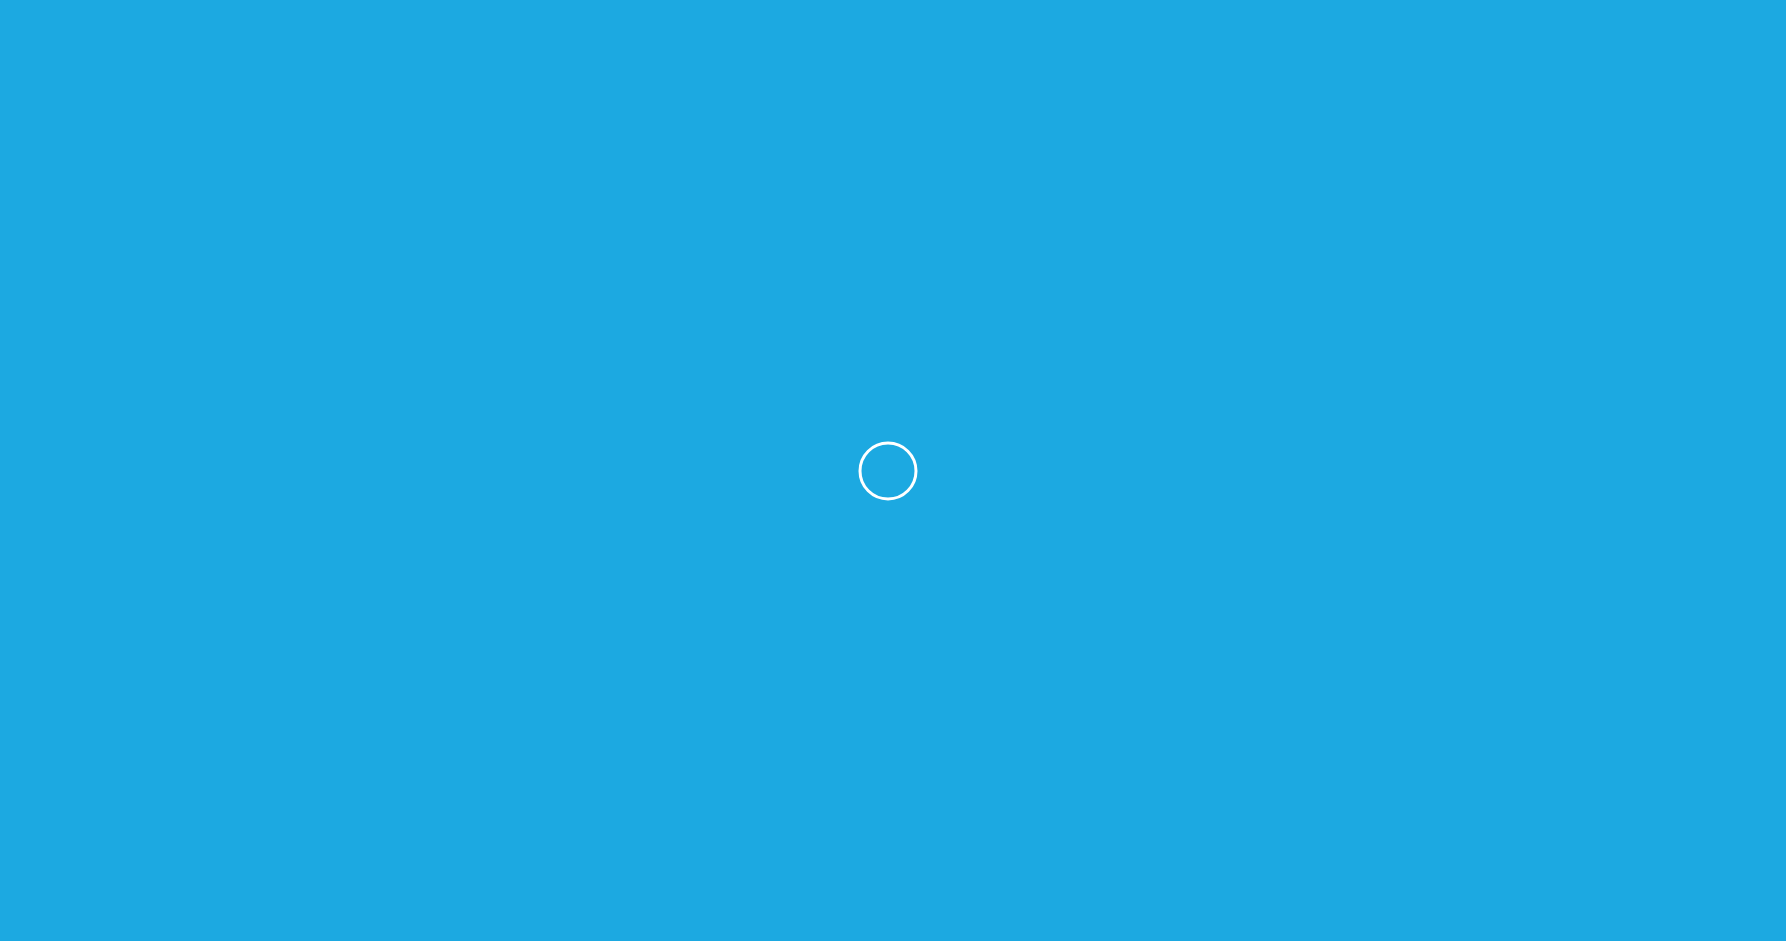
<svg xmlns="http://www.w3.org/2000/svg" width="1786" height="941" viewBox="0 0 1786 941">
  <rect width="100%" height="100%" fill="#1ca9e1"/>
  <path d="M888 443C903.5 443 916 455.5 916 471C916 486.5 903.5 499 888 499C872.5 499 860 486.5 860 471C860 455.5 872.5 443 888 443" fill="none" stroke="#fff" stroke-width="3" stroke-linecap="round"/>
</svg>
